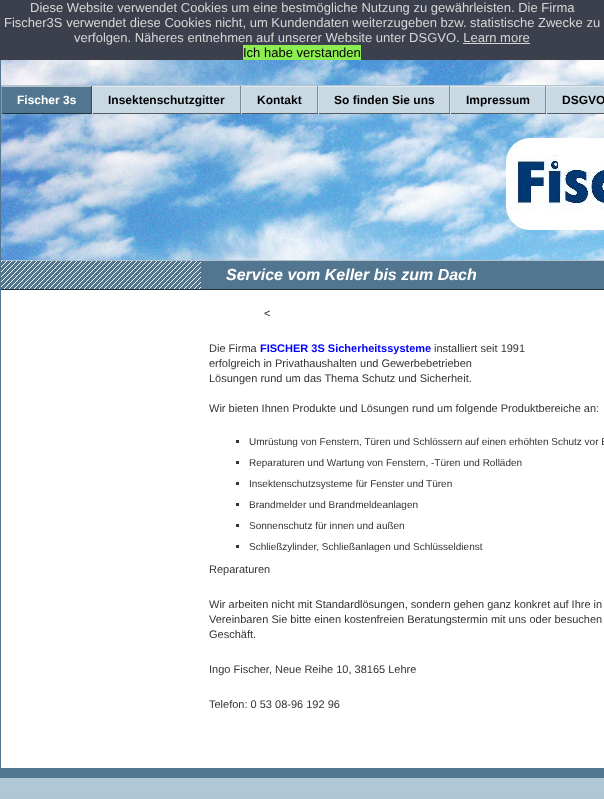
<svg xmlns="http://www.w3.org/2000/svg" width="604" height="799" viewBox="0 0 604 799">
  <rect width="100%" height="100%" fill="#fff"/>
  <image x="0" y="778" width="604" height="21" href="img/1.png"/>
  <path d="M0 0h604v60H0z" fill="#3c404d"/>
  <path d="M463 43h67v1H463z" fill="#d6d6d6"/>
  <path d="M243 45h118v15H243z" fill="#8bed4f"/>
  <path d="M0 60h1v718H0z" fill="#52768f"/>
  <image x="1" y="60" width="603" height="200" href="img/2.png"/>
  <image x="511" y="154" width="93" height="58" href="img/3.png"/>
  <path d="M2 87h89v26H2z" fill="#52768f"/>
  <path d="M1 85h603v1H1z" fill="#b4c3ce"/>
  <path d="M1 86h91v1H1z" fill="#b4c3ce"/>
  <path d="M91 86h1v28H91z" fill="#344b5b"/>
  <path d="M1 113h91v1H1z" fill="#22323c"/>
  <path d="M1 86h1v28H1z" fill="#829cae"/>
  <path d="M93 87h147v26H93z" fill="#c9d9e4"/>
  <path d="M92 86h512v1H92z" fill="#e0e9ef"/>
  <path d="M240 86h1v28H240z" fill="#808a91"/>
  <path d="M92 113h149v1H92z" fill="#545b60"/>
  <path d="M92 86h1v28H92z" fill="#d4e1ea"/>
  <path d="M242 87h75v26H242z" fill="#c9d9e4"/>
  <path d="M317 86h1v28H317z" fill="#808a91"/>
  <path d="M241 113h77v1H241z" fill="#545b60"/>
  <path d="M241 86h1v28H241z" fill="#d4e1ea"/>
  <path d="M319 87h130v26H319z" fill="#c9d9e4"/>
  <path d="M449 86h1v28H449z" fill="#808a91"/>
  <path d="M318 113h132v1H318z" fill="#545b60"/>
  <path d="M318 86h1v28H318z" fill="#d4e1ea"/>
  <path d="M451 87h94v26H451z" fill="#c9d9e4"/>
  <path d="M545 86h1v28H545z" fill="#808a91"/>
  <path d="M450 113h154v1H450z" fill="#545b60"/>
  <path d="M450 86h1v28H450z" fill="#d4e1ea"/>
  <path d="M547 87h57v26H547z" fill="#c9d9e4"/>
  <path d="M546 86h1v28H546z" fill="#d4e1ea"/>
  <path d="M1 261h603v28H1z" fill="#52768f"/>
  <image x="1" y="261" width="200" height="28" href="img/4.png"/>
  <path d="M1 260h603v1H1z" fill="#b4c3ce"/>
  <path d="M1 289h603v1H1z" fill="#22323c"/>
  <path d="M236 440h3v3H236z" fill="#333"/>
  <path d="M236 461h3v3H236z" fill="#333"/>
  <path d="M236 482h3v3H236z" fill="#333"/>
  <path d="M236 503h3v3H236z" fill="#333"/>
  <path d="M236 524h3v3H236z" fill="#333"/>
  <path d="M236 545h3v3H236z" fill="#333"/>
  <path d="M1 768h603v10H1z" fill="#52768f"/>
  <g font-family="Liberation Sans" font-size="13" fill="#d6d6d6">
    <text x="30" y="12">Diese Website verwendet Cookies um eine bestmögliche Nutzung zu gewährleisten. Die Firma</text>
    <text x="4" y="27">Fischer3S verwendet diese Cookies nicht, um Kundendaten weiterzugeben bzw. statistische Zwecke zu</text>
    <text x="74" y="42">verfolgen. Näheres entnehmen auf unserer Website unter DSGVO. Learn more</text>
  </g>
  <text x="243" y="57" font-family="Liberation Sans" font-size="13" fill="#000">Ich habe verstanden</text>
  <text x="17" y="104" font-family="Liberation Sans" font-size="12" font-weight="bold" fill="#fff">Fischer 3s</text>
  <g font-family="Liberation Sans" font-size="12" font-weight="bold" fill="#000">
    <text x="108" y="104">Insektenschutzgitter</text>
    <text x="257" y="104">Kontakt</text>
    <text x="334" y="104">So finden Sie uns</text>
    <text x="466" y="104">Impressum</text>
    <text x="562" y="104">DSGVO</text>
  </g>
  <text x="226" y="280" font-family="Liberation Sans" font-size="16" font-weight="bold" font-style="italic" fill="#fff">Service vom Keller bis zum Dach</text>
  <g font-family="Liberation Sans" font-size="11" fill="#333">
    <text x="264" y="317">&lt;</text>
    <text x="209" y="352">Die Firma</text>
  </g>
  <text x="260" y="352" font-family="Liberation Sans" font-size="11" font-weight="bold" fill="#00f">FISCHER 3S Sicherheitssysteme</text>
  <g font-family="Liberation Sans" font-size="11" fill="#333">
    <text x="434" y="352">installiert seit 1991</text>
    <text x="209" y="367">erfolgreich in Privathaushalten und Gewerbebetrieben</text>
    <text x="209" y="382">Lösungen rund um das Thema Schutz und Sicherheit.</text>
    <text x="209" y="412">Wir bieten Ihnen Produkte und Lösungen rund um folgende Produktbereiche an:</text>
  </g>
  <g font-family="Liberation Sans" font-size="10" fill="#333">
    <text x="249" y="445">Umrüstung von Fenstern, Türen und Schlössern auf einen erhöhten Schutz vor E</text>
    <text x="249" y="466">Reparaturen und Wartung von Fenstern, -Türen und Rolläden</text>
    <text x="249" y="487">Insektenschutzsysteme für Fenster und Türen</text>
    <text x="249" y="508">Brandmelder und Brandmeldeanlagen</text>
    <text x="249" y="529">Sonnenschutz für innen und außen</text>
    <text x="249" y="550">Schließzylinder, Schließanlagen und Schlüsseldienst</text>
  </g>
  <g font-family="Liberation Sans" font-size="11" fill="#333">
    <text x="209" y="573">Reparaturen</text>
    <text x="209" y="608">Wir arbeiten nicht mit Standardlösungen, sondern gehen ganz konkret auf Ihre in</text>
    <text x="209" y="623">Vereinbaren Sie bitte einen kostenfreien Beratungstermin mit uns oder besuchen</text>
    <text x="209" y="638">Geschäft.</text>
    <text x="209" y="673">Ingo Fischer, Neue Reihe 10, 38165 Lehre</text>
    <text x="209" y="708">Telefon: 0 53 08-96 192 96</text>
  </g>
</svg>
